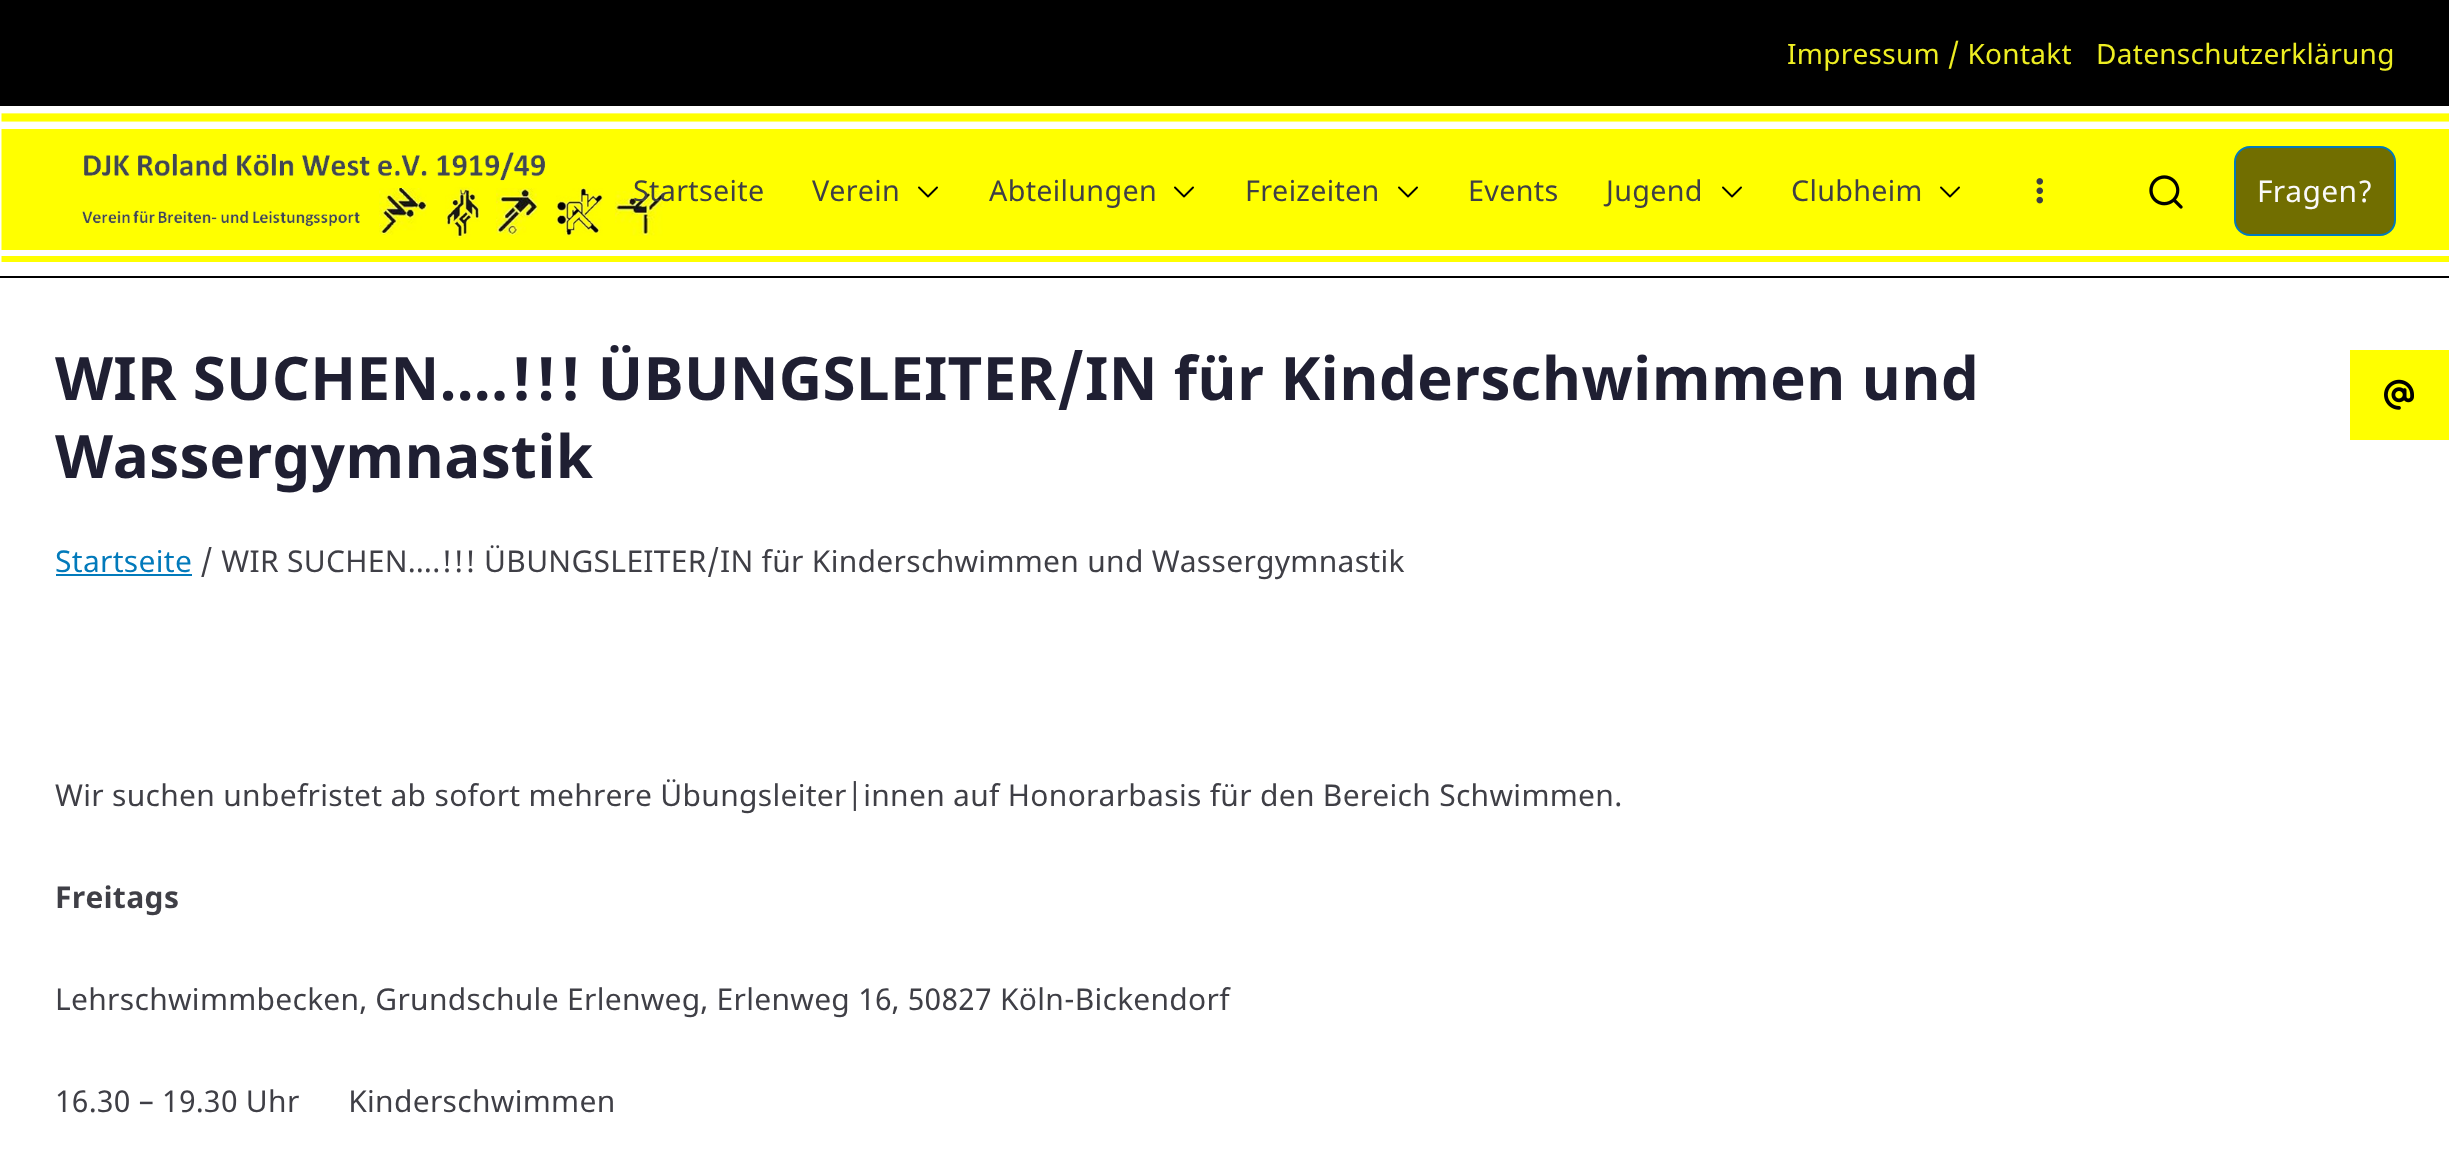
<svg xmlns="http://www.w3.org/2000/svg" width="2449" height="1168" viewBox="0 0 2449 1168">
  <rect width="100%" height="100%" fill="#000"/>
  <path d="M0 106h2449v170H0z" fill="#fff"/>
  <image x="1" y="113" width="2448" height="149" href="img/1.png"/>
  <image x="918" y="186" width="20" height="12" href="img/2.png"/>
  <image x="1174" y="186" width="20" height="12" href="img/2.png"/>
  <image x="1398" y="186" width="20" height="12" href="img/2.png"/>
  <image x="1722" y="186" width="20" height="12" href="img/2.png"/>
  <image x="1940" y="186" width="20" height="12" href="img/2.png"/>
  <image x="2036" y="178" width="7" height="26" href="img/3.png"/>
  <image x="2149" y="175" width="34" height="34" href="img/4.png"/>
  <rect x="2235" y="147" width="160" height="88" rx="15" fill="#716e00" stroke="#027abb" stroke-width="2"/>
  <path d="M0 278h2449v890H0z" fill="#fff"/>
  <path d="M56 574h136v2H56z" fill="#027abb"/>
  <path d="M2350 350h99v90H2350z" fill="#ff0"/>
  <image x="2384" y="379" width="30" height="31" href="img/5.png"/>
  <g font-family="Noto Sans" font-size="28" letter-spacing="0.3" fill="#ee2">
    <text x="1787" y="64">Impressum / Kontakt</text>
    <text x="2096" y="64">Datenschutzerklärung</text>
  </g>
  <g font-family="Noto Sans" font-size="28.75" letter-spacing="0.3" fill="#3f3f46">
    <text x="633" y="201">Startseite</text>
    <text x="812" y="201">Verein</text>
    <text x="989" y="201">Abteilungen</text>
    <text x="1245" y="201">Freizeiten</text>
    <text x="1468" y="201">Events</text>
    <text x="1606" y="201">Jugend</text>
    <text x="1791" y="201">Clubheim</text>
  </g>
  <text x="2257" y="202" font-family="Noto Sans" font-size="30" letter-spacing="0.3" fill="#fafafa">Fragen?</text>
  <g font-family="Noto Sans" font-size="60" font-weight="bold" letter-spacing="0.3" fill="#1f1f32">
    <text x="55" y="400">WIR SUCHEN….!!! ÜBUNGSLEITER/IN für Kinderschwimmen und</text>
    <text x="55" y="478">Wassergymnastik</text>
  </g>
  <text x="55" y="572" font-family="Noto Sans" font-size="30" letter-spacing="0.3" fill="#027abb">Startseite</text>
  <g font-family="Noto Sans" font-size="30" letter-spacing="0.3" fill="#3f3f46">
    <text x="200" y="572">/ WIR SUCHEN….!!! ÜBUNGSLEITER/IN für Kinderschwimmen und Wassergymnastik</text>
    <text x="55" y="806">Wir suchen unbefristet ab sofort mehrere Übungsleiter|innen auf Honorarbasis für den Bereich Schwimmen.</text>
  </g>
  <text x="55" y="908" font-family="Noto Sans" font-size="30" font-weight="bold" letter-spacing="0.3" fill="#3f3f46">Freitags</text>
  <g font-family="Noto Sans" font-size="30" letter-spacing="0.3" fill="#3f3f46">
    <text x="55" y="1010">Lehrschwimmbecken, Grundschule Erlenweg, Erlenweg 16, 50827 Köln-Bickendorf</text>
    <text x="55" y="1112" xml:space="preserve">16.30 – 19.30 Uhr      Kinderschwimmen</text>
  </g>
</svg>
